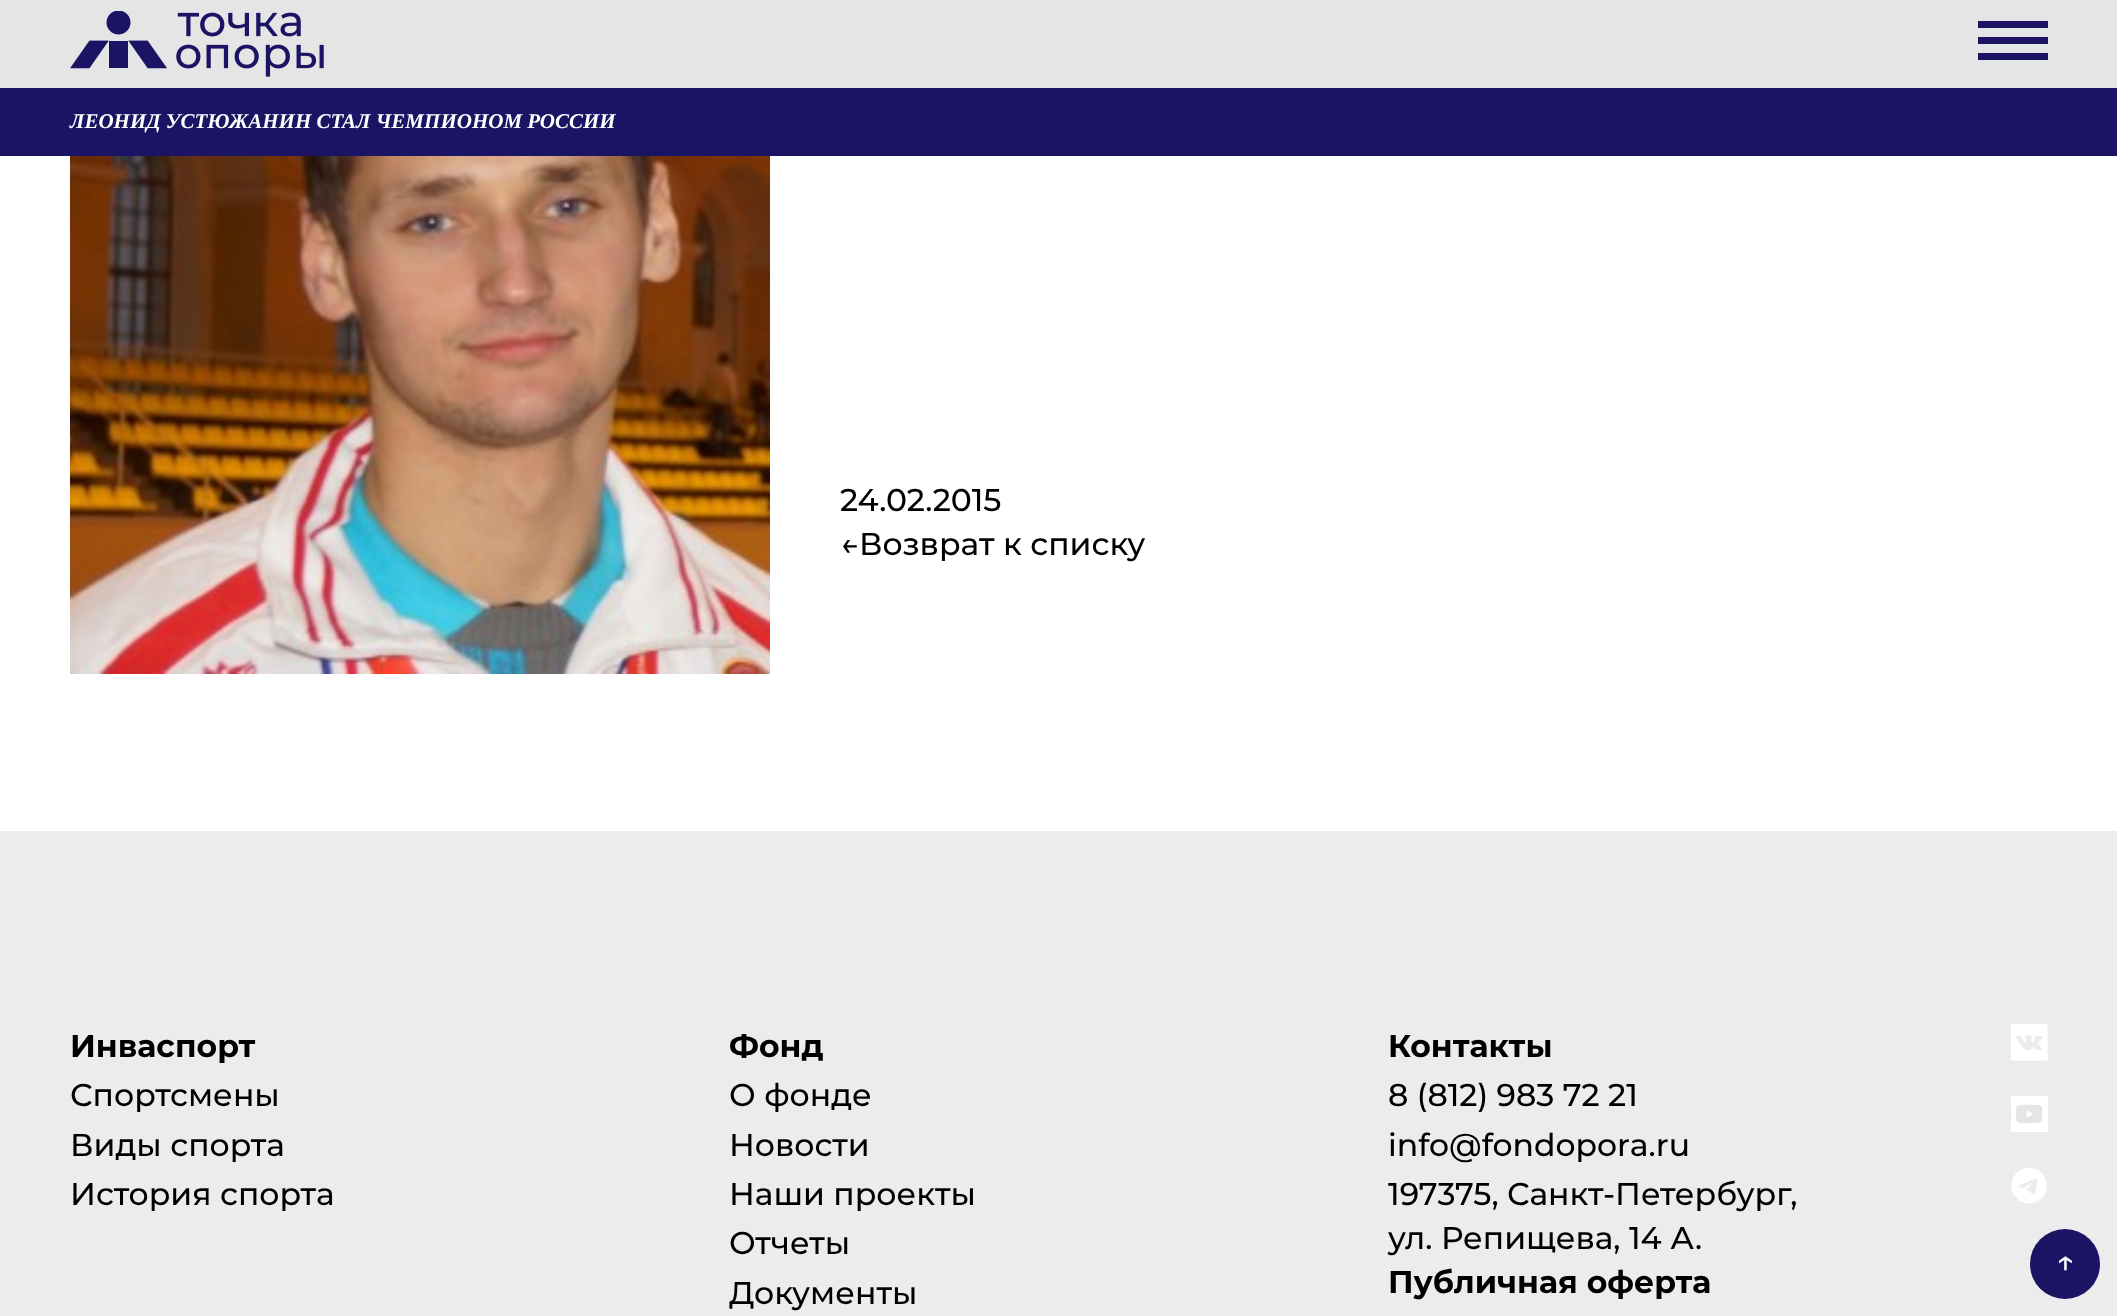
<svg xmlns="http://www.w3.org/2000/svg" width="2117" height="1316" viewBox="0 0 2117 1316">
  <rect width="100%" height="100%" fill="#fff"/>
  <path d="M0 0h2117v88H0z" fill="#e6e5e5"/>
  <image x="70" y="11" width="254" height="66" href="img/1.png"/>
  <path d="M1978 21h70v7H1978z" fill="#1b1464"/>
  <path d="M1978 37h70v7H1978z" fill="#1b1464"/>
  <path d="M1978 53h70v7H1978z" fill="#1b1464"/>
  <path d="M0 88h2117v68H0z" fill="#1b1464"/>
  <image x="70" y="156" width="700" height="518" href="img/2.png"/>
  <path d="M0 831h2117v485H0z" fill="#ececec"/>
  <image x="2011" y="1024" width="37" height="37" href="img/3.png"/>
  <image x="2011" y="1096" width="37" height="36" href="img/4.png"/>
  <image x="2011" y="1168" width="36" height="36" href="img/5.png"/>
  <circle cx="2065" cy="1264" r="35" fill="#1b1464"/>
  <text x="70" y="128" font-family="Liberation Serif" font-size="21" font-weight="bold" font-style="italic" fill="#fff">ЛЕОНИД УСТЮЖАНИН СТАЛ ЧЕМПИОНОМ РОССИИ</text>
  <g font-family="Montserrat" font-size="31.5" font-weight="500" fill="#000">
    <text x="840" y="511">24.02.2015</text>
    <text x="840" y="555">←Возврат к списку</text>
  </g>
  <text x="70" y="1057" font-family="Montserrat" font-size="31.5" font-weight="bold" fill="#000">Инваспорт</text>
  <g font-family="Montserrat" font-size="31.5" font-weight="500" fill="#000">
    <text x="70" y="1106">Спортсмены</text>
    <text x="70" y="1156">Виды спорта</text>
    <text x="70" y="1205">История спорта</text>
  </g>
  <text x="729" y="1057" font-family="Montserrat" font-size="31.5" font-weight="bold" fill="#000">Фонд</text>
  <g font-family="Montserrat" font-size="31.5" font-weight="500" fill="#000">
    <text x="729" y="1106">О фонде</text>
    <text x="729" y="1156">Новости</text>
    <text x="729" y="1205">Наши проекты</text>
    <text x="729" y="1254">Отчеты</text>
    <text x="729" y="1304">Документы</text>
  </g>
  <text x="1388" y="1057" font-family="Montserrat" font-size="31.5" font-weight="bold" fill="#000">Контакты</text>
  <g font-family="Montserrat" font-size="31.5" font-weight="500" fill="#000">
    <text x="1388" y="1106">8 (812) 983 72 21</text>
    <text x="1388" y="1156">info@fondopora.ru</text>
    <text x="1388" y="1205">197375, Санкт-Петербург,</text>
    <text x="1388" y="1249">ул. Репищева, 14 А.</text>
  </g>
  <text x="1388" y="1293" font-family="Montserrat" font-size="31.5" font-weight="bold" fill="#000">Публичная оферта</text>
  <text x="2056" y="1272" font-family="Montserrat" font-size="31.5" font-weight="500" fill="#fff">↑</text>
</svg>
